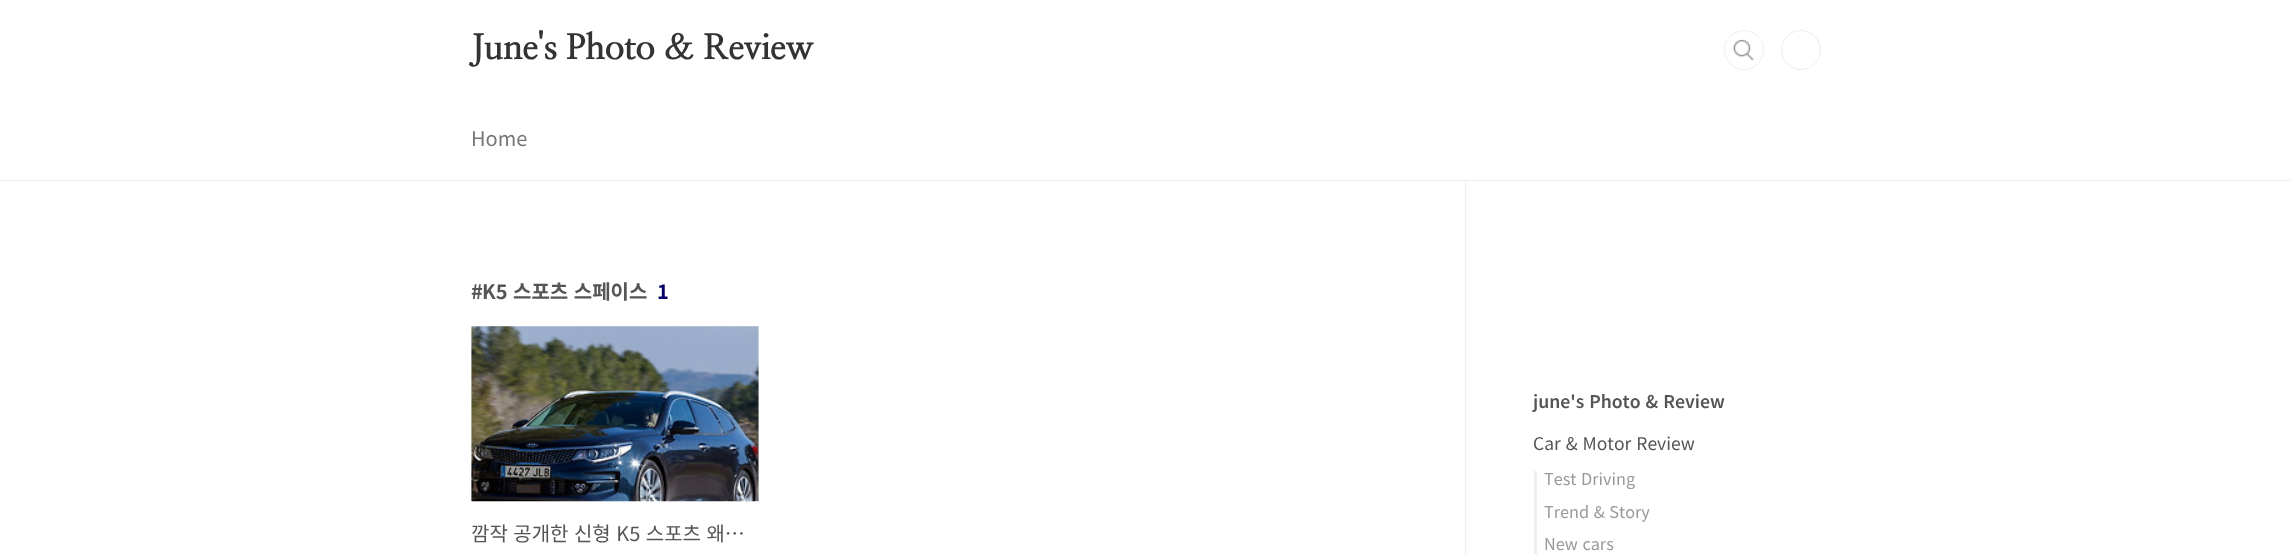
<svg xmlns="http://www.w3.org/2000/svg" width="2291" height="554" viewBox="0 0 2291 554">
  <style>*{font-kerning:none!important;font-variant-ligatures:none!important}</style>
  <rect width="100%" height="100%" fill="#fff"/>
  <path d="M0 180h2291v1H0z" fill="#eee"/>
  <circle cx="1744" cy="50" r="18.5" fill="none" stroke="#eee"/>
  <circle cx="1744" cy="50" r="20" fill="#fff"/>
  <image x="1733" y="39" width="21" height="22" href="img/1.png"/>
  <circle cx="1744" cy="50" r="19.5" fill="none" stroke="#eee"/>
  <circle cx="1801" cy="50" r="19.5" fill="none" stroke="#eee"/>
  <path d="M471 326h288v175H471z" fill="#f8f8f8"/>
  <image x="471" y="326" width="288" height="176" href="img/2.png"/>
  <path d="M1465 181h1v373H1465z" fill="#eee"/>
  <path d="M1534 471h3v83H1534z" fill="#eee"/>
  <text x="471" y="59" font-family="NanumMyeongjo" font-size="35" font-weight="800" letter-spacing="-0.25" fill="#333">June's Photo &amp; Review</text>
  <text x="471" y="146" font-family="Noto Sans KR" font-size="20" fill="#777">Home</text>
  <g font-family="Noto Sans KR" font-size="20" font-weight="bold" fill="#555">
    <text x="471" y="299">#</text>
    <text x="482" y="299" word-spacing="1">K5 스포츠 스페이스</text>
  </g>
  <text x="657" y="299" font-family="Noto Sans KR" font-size="20" font-weight="bold" fill="#060068">1</text>
  <text x="471" y="541" word-spacing="1" font-family="Noto Sans KR" font-size="20" fill="#555">깜작 공개한 신형 K5 스포츠 왜…</text>
  <text x="1533" y="408" word-spacing="1" font-family="Noto Sans KR" font-size="17.5" font-weight="600" fill="#555">june's Photo &amp; Review</text>
  <text x="1533" y="450" word-spacing="1" font-family="Noto Sans KR" font-size="17.5" fill="#555">Car &amp; Motor Review</text>
  <g font-family="Noto Sans KR" font-size="16.25" fill="#999">
    <text x="1544" y="485" word-spacing="1">Test Driving</text>
    <text x="1544" y="518" word-spacing="1">Trend &amp; Story</text>
    <text x="1544" y="550" word-spacing="1">New cars</text>
  </g>
</svg>
